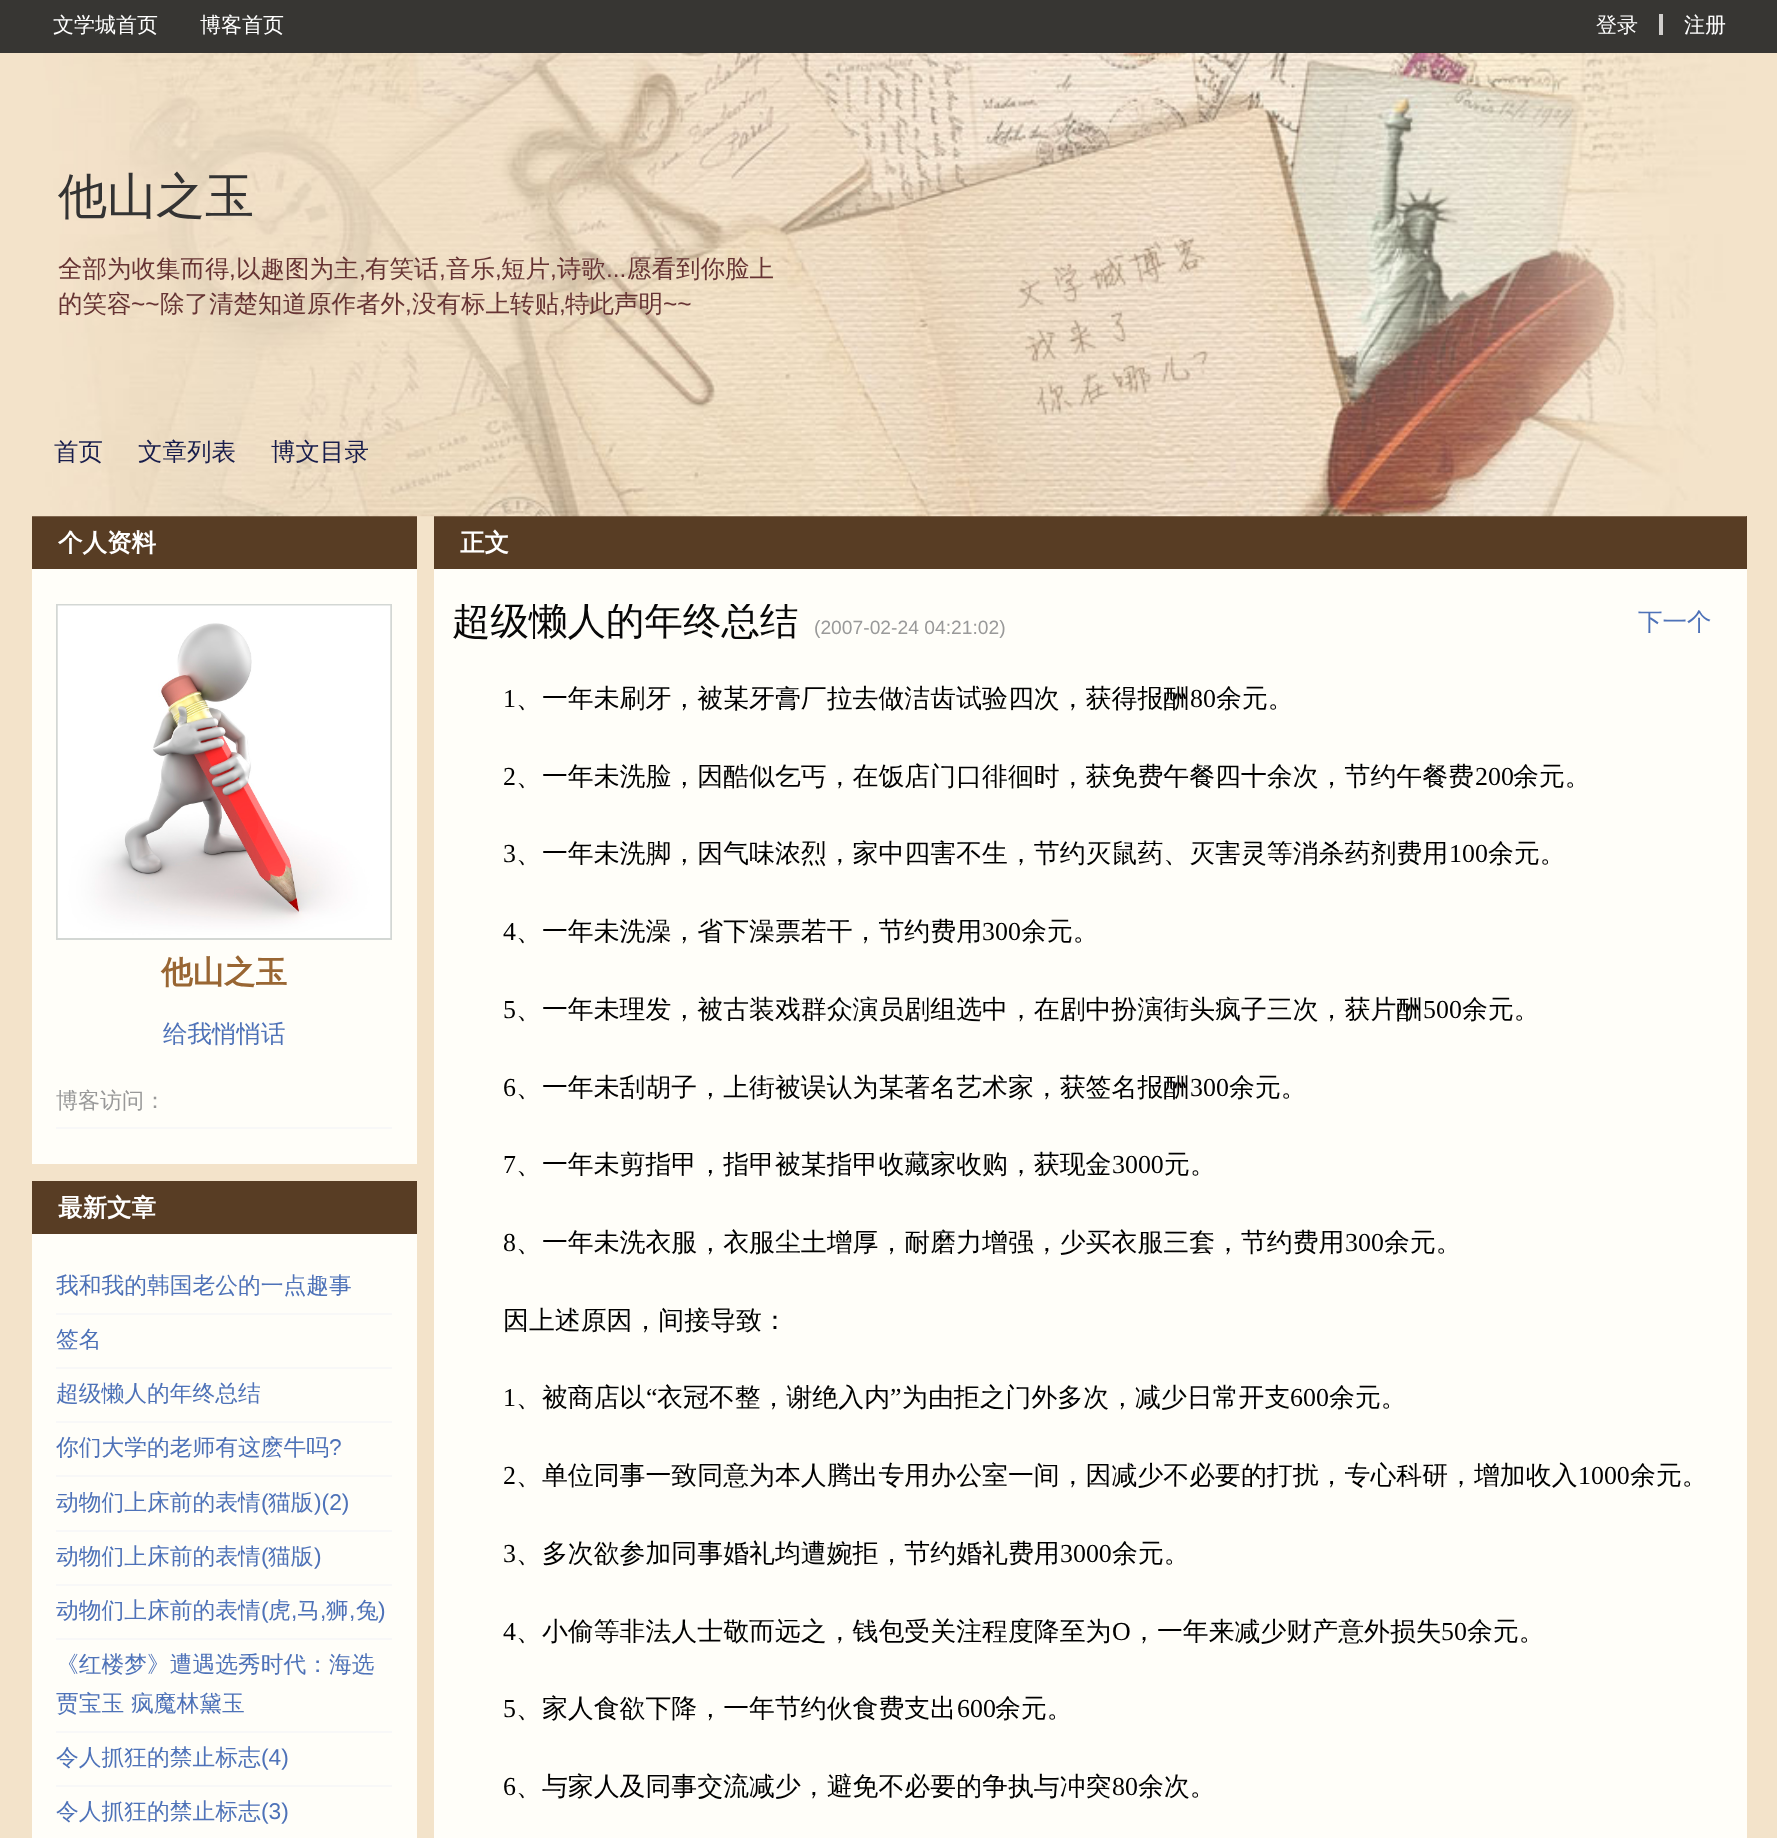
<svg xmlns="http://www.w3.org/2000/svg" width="1777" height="1838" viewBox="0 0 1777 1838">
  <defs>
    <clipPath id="clip1"><path d="M452 604h1260v40H452z"/></clipPath>
  </defs>
  <rect width="100%" height="100%" fill="#f3e3ca"/>
  <path d="M32 516h385v53H32z" fill="#583d24"/>
  <path d="M434 516h1313v53H434z" fill="#583d24"/>
  <image x="32" y="52" width="1715" height="465" href="img/1.png"/>
  <path d="M0 0h1777v53H0z" fill="#222222e6"/>
  <path d="M1659 14h4v21H1659z" fill="#d0cecc"/>
  <path d="M32 569h385v595H32z" fill="#fffef9"/>
  <path d="M57 605h334v334H57z" fill="none" stroke="#d3d7d4" stroke-width="2"/>
  <image x="57" y="605" width="334" height="333" href="img/2.png"/>
  <path d="M56 1127h336v2H56z" fill="#f8f8f8"/>
  <path d="M32 1181h385v53H32z" fill="#583d24"/>
  <path d="M32 1234h385v604H32z" fill="#fffef9"/>
  <path d="M56 1313h336v2H56z" fill="#f8f8f8"/>
  <path d="M56 1367h336v2H56z" fill="#f8f8f8"/>
  <path d="M56 1421h336v2H56z" fill="#f8f8f8"/>
  <path d="M56 1475h336v2H56z" fill="#f8f8f8"/>
  <path d="M56 1530h336v2H56z" fill="#f8f8f8"/>
  <path d="M56 1584h336v2H56z" fill="#f8f8f8"/>
  <path d="M56 1638h336v2H56z" fill="#f8f8f8"/>
  <path d="M56 1731h336v2H56z" fill="#f8f8f8"/>
  <path d="M56 1785h336v2H56z" fill="#f8f8f8"/>
  <path d="M434 569h1313v1269H434z" fill="#fffef9"/>
  <g font-family="WenQuanYi Zen Hei" font-size="21" font-weight="500" fill="#fff">
    <text x="53" y="32">文学城首页</text>
    <text x="200" y="32">博客首页</text>
    <text x="1596" y="32">登录</text>
    <text x="1684" y="32">注册</text>
  </g>
  <text x="58" y="213" font-family="WenQuanYi Zen Hei" font-size="49" font-weight="500" fill="#333">他山之玉</text>
  <text x="58" y="277" font-family="WenQuanYi Zen Hei" font-size="24.5" font-weight="500" fill="#633">全部为收集而得</text>
  <text x="229" y="277" font-family="Liberation Sans" font-size="24.5" fill="#633">,</text>
  <text x="236" y="277" font-family="WenQuanYi Zen Hei" font-size="24.5" font-weight="500" fill="#633">以趣图为主</text>
  <text x="359" y="277" font-family="Liberation Sans" font-size="24.5" fill="#633">,</text>
  <text x="365" y="277" font-family="WenQuanYi Zen Hei" font-size="24.5" font-weight="500" fill="#633">有笑话</text>
  <text x="439" y="277" font-family="Liberation Sans" font-size="24.5" fill="#633">,</text>
  <text x="446" y="277" font-family="WenQuanYi Zen Hei" font-size="24.5" font-weight="500" fill="#633">音乐</text>
  <text x="495" y="277" font-family="Liberation Sans" font-size="24.5" fill="#633">,</text>
  <text x="501" y="277" font-family="WenQuanYi Zen Hei" font-size="24.5" font-weight="500" fill="#633">短片</text>
  <text x="550" y="277" font-family="Liberation Sans" font-size="24.5" fill="#633">,</text>
  <text x="557" y="277" font-family="WenQuanYi Zen Hei" font-size="24.5" font-weight="500" fill="#633">诗歌</text>
  <text x="606" y="277" font-family="Liberation Sans" font-size="24.5" fill="#633">...</text>
  <g font-family="WenQuanYi Zen Hei" font-size="24.5" font-weight="500" fill="#633">
    <text x="627" y="277">愿看到你脸上</text>
    <text x="58" y="312">的笑容</text>
  </g>
  <text x="131" y="312" font-family="Liberation Sans" font-size="24.5" fill="#633">~~</text>
  <g font-family="WenQuanYi Zen Hei" font-size="24.5" font-weight="500" fill="#633">
    <text x="160" y="312">除了清楚知道原作者外</text>
    <text x="412" y="312">没有标上转贴</text>
    <text x="565" y="312">特此声明</text>
  </g>
  <g font-family="Liberation Sans" font-size="24.5" fill="#633">
    <text x="663" y="312">~~</text>
    <text x="405" y="312">,</text>
    <text x="559" y="312">,</text>
  </g>
  <g font-family="WenQuanYi Zen Hei" font-size="24.5" font-weight="500" fill="#181d4b">
    <text x="54" y="460">首页</text>
    <text x="138" y="460">文章列表</text>
    <text x="271" y="460">博文目录</text>
  </g>
  <text x="58" y="551" font-family="WenQuanYi Zen Hei" font-size="24.5" font-weight="bold" fill="#fff">个人资料</text>
  <text x="161" y="983" font-family="WenQuanYi Zen Hei" font-size="31.5" font-weight="bold" fill="#963">他山之玉</text>
  <text x="163" y="1042" font-family="WenQuanYi Zen Hei" font-size="24.5" font-weight="500" fill="#4e72b8">给我悄悄话</text>
  <text x="56" y="1108" font-family="WenQuanYi Zen Hei" font-size="22" font-weight="500" fill="#999">博客访问：</text>
  <text x="58" y="1216" font-family="WenQuanYi Zen Hei" font-size="24.5" font-weight="bold" fill="#fff">最新文章</text>
  <g font-family="WenQuanYi Zen Hei" font-size="22.75" font-weight="500" fill="#4e72b8">
    <text x="56" y="1293">我和我的韩国老公的一点趣事</text>
    <text x="56" y="1347">签名</text>
    <text x="56" y="1401">超级懒人的年终总结</text>
    <text x="56" y="1455">你们大学的老师有这麽牛吗</text>
  </g>
  <text x="329" y="1455" font-family="Liberation Sans" font-size="22.75" fill="#4e72b8">?</text>
  <text x="56" y="1510" font-family="WenQuanYi Zen Hei" font-size="22.75" font-weight="500" fill="#4e72b8">动物们上床前的表情</text>
  <text x="261" y="1510" font-family="Liberation Sans" font-size="22.75" fill="#4e72b8">(</text>
  <text x="268" y="1510" font-family="WenQuanYi Zen Hei" font-size="22.75" font-weight="500" fill="#4e72b8">猫版</text>
  <text x="314" y="1510" font-family="Liberation Sans" font-size="22.75" fill="#4e72b8">)(2)</text>
  <text x="56" y="1564" font-family="WenQuanYi Zen Hei" font-size="22.75" font-weight="500" fill="#4e72b8">动物们上床前的表情</text>
  <text x="261" y="1564" font-family="Liberation Sans" font-size="22.75" fill="#4e72b8">(</text>
  <text x="268" y="1564" font-family="WenQuanYi Zen Hei" font-size="22.75" font-weight="500" fill="#4e72b8">猫版</text>
  <text x="314" y="1564" font-family="Liberation Sans" font-size="22.75" fill="#4e72b8">)</text>
  <text x="56" y="1618" font-family="WenQuanYi Zen Hei" font-size="22.75" font-weight="500" fill="#4e72b8">动物们上床前的表情</text>
  <text x="261" y="1618" font-family="Liberation Sans" font-size="22.75" fill="#4e72b8">(</text>
  <text x="268" y="1618" font-family="WenQuanYi Zen Hei" font-size="22.75" font-weight="500" fill="#4e72b8">虎</text>
  <text x="291" y="1618" font-family="Liberation Sans" font-size="22.75" fill="#4e72b8">,</text>
  <text x="297" y="1618" font-family="WenQuanYi Zen Hei" font-size="22.75" font-weight="500" fill="#4e72b8">马</text>
  <text x="320" y="1618" font-family="Liberation Sans" font-size="22.75" fill="#4e72b8">,</text>
  <text x="326" y="1618" font-family="WenQuanYi Zen Hei" font-size="22.75" font-weight="500" fill="#4e72b8">狮</text>
  <text x="349" y="1618" font-family="Liberation Sans" font-size="22.75" fill="#4e72b8">,</text>
  <text x="356" y="1618" font-family="WenQuanYi Zen Hei" font-size="22.75" font-weight="500" fill="#4e72b8">兔</text>
  <text x="378" y="1618" font-family="Liberation Sans" font-size="22.75" fill="#4e72b8">)</text>
  <g font-family="WenQuanYi Zen Hei" font-size="22.75" font-weight="500" fill="#4e72b8">
    <text x="56" y="1672">《红楼梦》遭遇选秀时代：海选</text>
    <text x="56" y="1711">贾宝玉 疯魔林黛玉</text>
    <text x="56" y="1765">令人抓狂的禁止标志</text>
  </g>
  <text x="261" y="1765" font-family="Liberation Sans" font-size="22.75" fill="#4e72b8">(4)</text>
  <text x="56" y="1819" font-family="WenQuanYi Zen Hei" font-size="22.75" font-weight="500" fill="#4e72b8">令人抓狂的禁止标志</text>
  <text x="261" y="1819" font-family="Liberation Sans" font-size="22.75" fill="#4e72b8">(3)</text>
  <text x="460" y="551" font-family="WenQuanYi Zen Hei" font-size="24.5" font-weight="bold" fill="#fff">正文</text>
  <g clip-path="url(#clip1)">
    <text x="452" y="634" font-family="WenQuanYi Zen Hei" font-size="38.5" font-weight="500" fill="#080808">超级懒人的年终总结</text>
  </g>
  <text x="814" y="634" font-family="Liberation Sans" font-size="19.25" fill="#999">(2007-02-24 04:21:02)</text>
  <text x="1638" y="630" font-family="WenQuanYi Zen Hei" font-size="24.5" font-weight="500" fill="#4e72b8">下一个</text>
  <text x="503" y="707" font-family="Liberation Serif" font-size="25.9" fill="#000">1</text>
  <text x="516" y="707" font-family="WenQuanYi Zen Hei" font-size="25.9" font-weight="500" fill="#000">、一年未刷牙，被某牙膏厂拉去做洁齿试验四次，获得报酬</text>
  <text x="1190" y="707" font-family="Liberation Serif" font-size="25.9" fill="#000">80</text>
  <text x="1216" y="707" font-family="WenQuanYi Zen Hei" font-size="25.9" font-weight="500" fill="#000">余元。</text>
  <text x="503" y="785" font-family="Liberation Serif" font-size="25.9" fill="#000">2</text>
  <text x="516" y="785" font-family="WenQuanYi Zen Hei" font-size="25.9" font-weight="500" fill="#000">、一年未洗脸，因酷似乞丐，在饭店门口徘徊时，获免费午餐四十余次，节约午餐费</text>
  <text x="1475" y="785" font-family="Liberation Serif" font-size="25.9" fill="#000">200</text>
  <text x="1513" y="785" font-family="WenQuanYi Zen Hei" font-size="25.9" font-weight="500" fill="#000">余元。</text>
  <text x="503" y="862" font-family="Liberation Serif" font-size="25.9" fill="#000">3</text>
  <text x="516" y="862" font-family="WenQuanYi Zen Hei" font-size="25.9" font-weight="500" fill="#000">、一年未洗脚，因气味浓烈，家中四害不生，节约灭鼠药、灭害灵等消杀药剂费用</text>
  <text x="1449" y="862" font-family="Liberation Serif" font-size="25.9" fill="#000">100</text>
  <text x="1488" y="862" font-family="WenQuanYi Zen Hei" font-size="25.9" font-weight="500" fill="#000">余元。</text>
  <text x="503" y="940" font-family="Liberation Serif" font-size="25.9" fill="#000">4</text>
  <text x="516" y="940" font-family="WenQuanYi Zen Hei" font-size="25.9" font-weight="500" fill="#000">、一年未洗澡，省下澡票若干，节约费用</text>
  <text x="982" y="940" font-family="Liberation Serif" font-size="25.9" fill="#000">300</text>
  <text x="1021" y="940" font-family="WenQuanYi Zen Hei" font-size="25.9" font-weight="500" fill="#000">余元。</text>
  <text x="503" y="1018" font-family="Liberation Serif" font-size="25.9" fill="#000">5</text>
  <text x="516" y="1018" font-family="WenQuanYi Zen Hei" font-size="25.9" font-weight="500" fill="#000">、一年未理发，被古装戏群众演员剧组选中，在剧中扮演街头疯子三次，获片酬</text>
  <text x="1423" y="1018" font-family="Liberation Serif" font-size="25.9" fill="#000">500</text>
  <text x="1462" y="1018" font-family="WenQuanYi Zen Hei" font-size="25.9" font-weight="500" fill="#000">余元。</text>
  <text x="503" y="1096" font-family="Liberation Serif" font-size="25.9" fill="#000">6</text>
  <text x="516" y="1096" font-family="WenQuanYi Zen Hei" font-size="25.9" font-weight="500" fill="#000">、一年未刮胡子，上街被误认为某著名艺术家，获签名报酬</text>
  <text x="1190" y="1096" font-family="Liberation Serif" font-size="25.9" fill="#000">300</text>
  <text x="1229" y="1096" font-family="WenQuanYi Zen Hei" font-size="25.9" font-weight="500" fill="#000">余元。</text>
  <text x="503" y="1173" font-family="Liberation Serif" font-size="25.9" fill="#000">7</text>
  <text x="516" y="1173" font-family="WenQuanYi Zen Hei" font-size="25.9" font-weight="500" fill="#000">、一年未剪指甲，指甲被某指甲收藏家收购，获现金</text>
  <text x="1112" y="1173" font-family="Liberation Serif" font-size="25.9" fill="#000">3000</text>
  <text x="1164" y="1173" font-family="WenQuanYi Zen Hei" font-size="25.9" font-weight="500" fill="#000">元。</text>
  <text x="503" y="1251" font-family="Liberation Serif" font-size="25.9" fill="#000">8</text>
  <text x="516" y="1251" font-family="WenQuanYi Zen Hei" font-size="25.9" font-weight="500" fill="#000">、一年未洗衣服，衣服尘土增厚，耐磨力增强，少买衣服三套，节约费用</text>
  <text x="1345" y="1251" font-family="Liberation Serif" font-size="25.9" fill="#000">300</text>
  <g font-family="WenQuanYi Zen Hei" font-size="25.9" font-weight="500" fill="#000">
    <text x="1384" y="1251">余元。</text>
    <text x="503" y="1329">因上述原因，间接导致：</text>
  </g>
  <text x="503" y="1406" font-family="Liberation Serif" font-size="25.9" fill="#000">1</text>
  <text x="516" y="1406" font-family="WenQuanYi Zen Hei" font-size="25.9" font-weight="500" fill="#000">、被商店以</text>
  <text x="646" y="1406" font-family="Liberation Serif" font-size="25.9" fill="#000">“</text>
  <text x="657" y="1406" font-family="WenQuanYi Zen Hei" font-size="25.9" font-weight="500" fill="#000">衣冠不整，谢绝入内</text>
  <text x="890" y="1406" font-family="Liberation Serif" font-size="25.9" fill="#000">”</text>
  <text x="902" y="1406" font-family="WenQuanYi Zen Hei" font-size="25.9" font-weight="500" fill="#000">为由拒之门外多次，减少日常开支</text>
  <text x="1290" y="1406" font-family="Liberation Serif" font-size="25.9" fill="#000">600</text>
  <text x="1329" y="1406" font-family="WenQuanYi Zen Hei" font-size="25.9" font-weight="500" fill="#000">余元。</text>
  <text x="503" y="1484" font-family="Liberation Serif" font-size="25.9" fill="#000">2</text>
  <text x="516" y="1484" font-family="WenQuanYi Zen Hei" font-size="25.9" font-weight="500" fill="#000">、单位同事一致同意为本人腾出专用办公室一间，因减少不必要的打扰，专心科研，增加收入</text>
  <text x="1578" y="1484" font-family="Liberation Serif" font-size="25.9" fill="#000">1000</text>
  <text x="1630" y="1484" font-family="WenQuanYi Zen Hei" font-size="25.9" font-weight="500" fill="#000">余元。</text>
  <text x="503" y="1562" font-family="Liberation Serif" font-size="25.9" fill="#000">3</text>
  <text x="516" y="1562" font-family="WenQuanYi Zen Hei" font-size="25.9" font-weight="500" fill="#000">、多次欲参加同事婚礼均遭婉拒，节约婚礼费用</text>
  <text x="1060" y="1562" font-family="Liberation Serif" font-size="25.9" fill="#000">3000</text>
  <text x="1112" y="1562" font-family="WenQuanYi Zen Hei" font-size="25.9" font-weight="500" fill="#000">余元。</text>
  <text x="503" y="1640" font-family="Liberation Serif" font-size="25.9" fill="#000">4</text>
  <text x="516" y="1640" font-family="WenQuanYi Zen Hei" font-size="25.9" font-weight="500" fill="#000">、小偷等非法人士敬而远之，钱包受关注程度降至为</text>
  <text x="1112" y="1640" font-family="Liberation Serif" font-size="25.9" fill="#000">O</text>
  <text x="1131" y="1640" font-family="WenQuanYi Zen Hei" font-size="25.9" font-weight="500" fill="#000">，一年来减少财产意外损失</text>
  <text x="1441" y="1640" font-family="Liberation Serif" font-size="25.9" fill="#000">50</text>
  <text x="1467" y="1640" font-family="WenQuanYi Zen Hei" font-size="25.9" font-weight="500" fill="#000">余元。</text>
  <text x="503" y="1717" font-family="Liberation Serif" font-size="25.9" fill="#000">5</text>
  <text x="516" y="1717" font-family="WenQuanYi Zen Hei" font-size="25.9" font-weight="500" fill="#000">、家人食欲下降，一年节约伙食费支出</text>
  <text x="957" y="1717" font-family="Liberation Serif" font-size="25.9" fill="#000">600</text>
  <text x="995" y="1717" font-family="WenQuanYi Zen Hei" font-size="25.9" font-weight="500" fill="#000">余元。</text>
  <text x="503" y="1795" font-family="Liberation Serif" font-size="25.9" fill="#000">6</text>
  <text x="516" y="1795" font-family="WenQuanYi Zen Hei" font-size="25.9" font-weight="500" fill="#000">、与家人及同事交流减少，避免不必要的争执与冲突</text>
  <text x="1112" y="1795" font-family="Liberation Serif" font-size="25.9" fill="#000">80</text>
  <text x="1138" y="1795" font-family="WenQuanYi Zen Hei" font-size="25.9" font-weight="500" fill="#000">余次。</text>
</svg>
